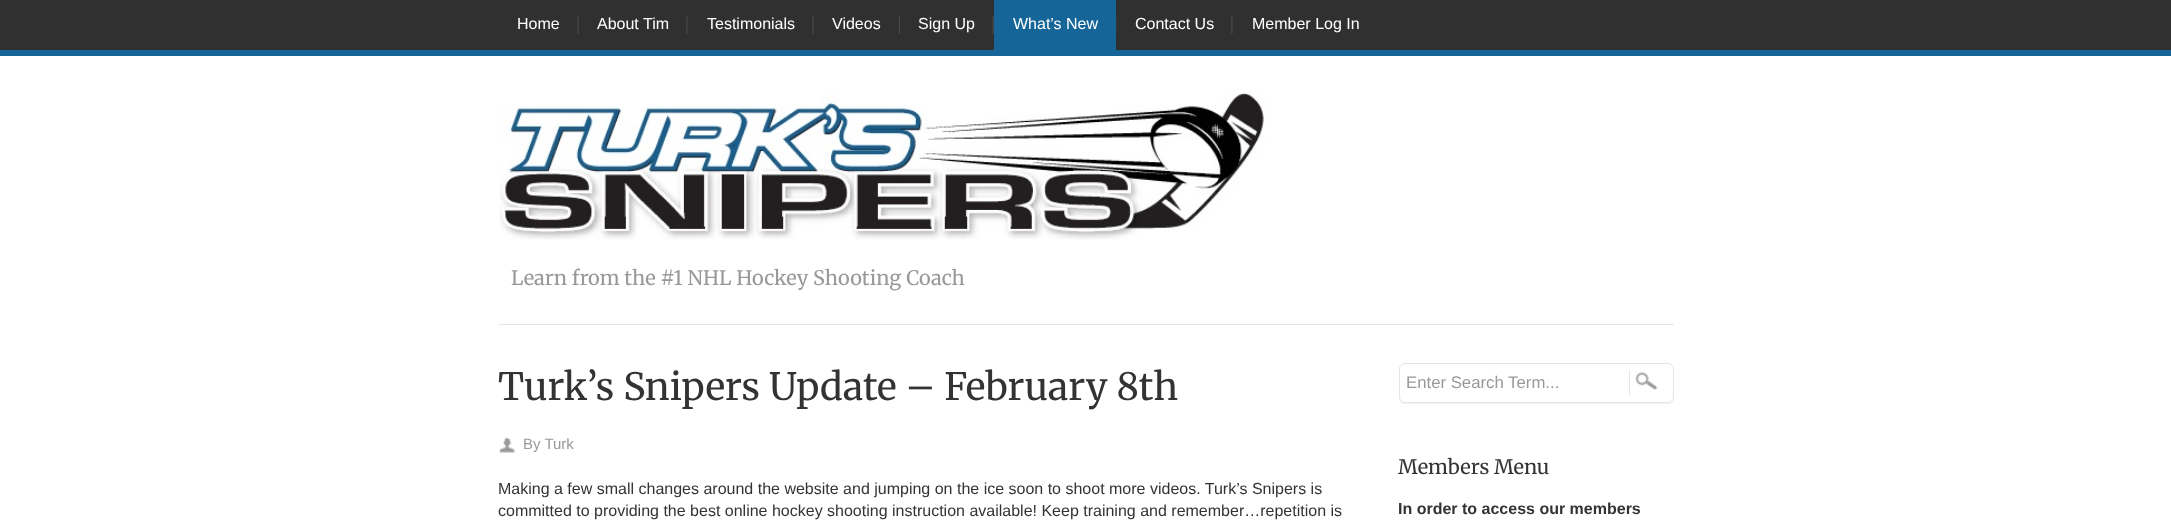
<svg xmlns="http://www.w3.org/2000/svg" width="2171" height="525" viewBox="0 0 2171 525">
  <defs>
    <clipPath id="clip1"><path d="M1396 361H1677V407H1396ZM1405 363H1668C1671.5 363 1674 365.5 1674 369V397C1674 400.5 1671.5 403 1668 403H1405C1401.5 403 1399 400.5 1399 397V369C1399 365.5 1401.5 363 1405 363Z" clip-rule="evenodd"/></clipPath>
  </defs>
  <rect width="100%" height="100%" fill="#fff"/>
  <path d="M0 0h2171v50H0z" fill="#303030"/>
  <path d="M0 50h2171v6H0z" fill="#166599"/>
  <image x="577" y="16" width="2" height="18" href="img/1.png"/>
  <image x="686" y="16" width="2" height="18" href="img/2.png"/>
  <image x="812" y="16" width="2" height="18" href="img/1.png"/>
  <image x="898" y="16" width="2" height="18" href="img/3.png"/>
  <image x="992" y="16" width="2" height="18" href="img/1.png"/>
  <image x="1116" y="16" width="1" height="18" href="img/4.png"/>
  <path d="M994 0h122v50H994z" fill="#166599"/>
  <image x="1231" y="16" width="2" height="18" href="img/2.png"/>
  <path d="M499 324h1175v1H499z" fill="#e5e5e5"/>
  <image x="499" y="91" width="766" height="149" href="img/5.png"/>
  <image x="499" y="437" width="16" height="16" href="img/6.png"/>
  <g clip-path="url(#clip1)">
    <rect x="1399" y="364" width="275" height="40" rx="6" fill="#f1f1f1" filter="blur(0.5px)"/>
  </g>
  <rect x="1399.5" y="363.5" width="274" height="39" rx="5.5" fill="none" stroke="#e5e5e5"/>
  <image x="1635" y="372" width="23" height="18" href="img/7.png"/>
  <path d="M1629 370h1v25H1629z" fill="#e5e5e5"/>
  <g font-family="Liberation Sans" font-size="16" fill="#fff">
    <text x="517" y="29">Home</text>
    <text x="597" y="29">About Tim</text>
    <text x="707" y="29">Testimonials</text>
    <text x="832" y="29">Videos</text>
    <text x="918" y="29">Sign Up</text>
    <text x="1013" y="29">What’s New</text>
    <text x="1135" y="29">Contact Us</text>
    <text x="1252" y="29">Member Log In</text>
  </g>
  <text x="511" y="285" font-family="Merriweather" font-size="20" fill="#999">Learn from the #1 NHL Hockey Shooting Coach</text>
  <text x="498" y="400" font-family="Merriweather" font-size="37.6" fill="#333">Turk’s Snipers Update – February 8th</text>
  <text x="523" y="449" font-family="Liberation Sans" font-size="15" fill="#999">By Turk</text>
  <g font-family="Liberation Sans" font-size="16" fill="#333">
    <text x="498" y="494">Making a few small changes around the website and jumping on the ice soon to shoot more videos. Turk’s Snipers is</text>
    <text x="498" y="516">committed to providing the best online hockey shooting instruction available! Keep training and remember…repetition is</text>
  </g>
  <text x="1406" y="388" font-family="Liberation Sans" font-size="16.75" fill="#999">Enter Search Term...</text>
  <text x="1398" y="474" font-family="Merriweather" font-size="20" fill="#333">Members Menu</text>
  <text x="1398" y="514" font-family="Liberation Sans" font-size="16" font-weight="bold" fill="#333">In order to access our members</text>
</svg>
